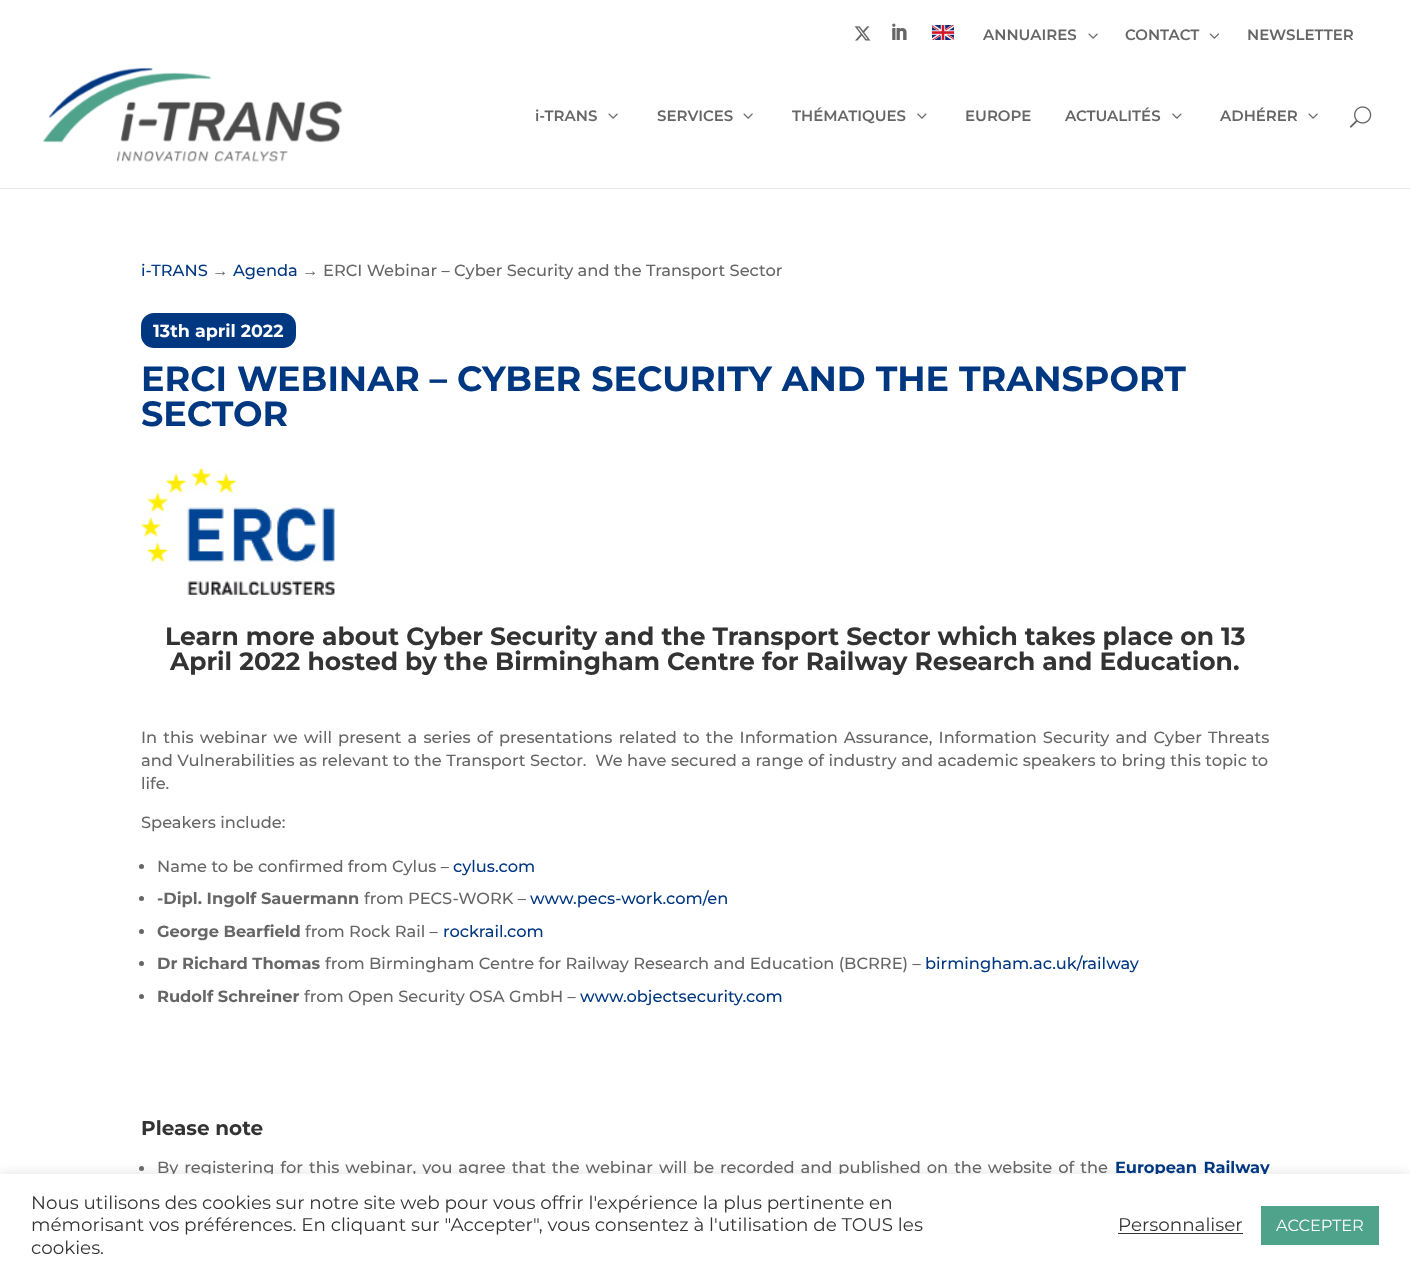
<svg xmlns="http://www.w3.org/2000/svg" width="1410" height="1276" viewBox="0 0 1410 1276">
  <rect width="100%" height="100%" fill="#fff"/>
  <image x="854" y="26" width="17" height="15" href="img/1.png"/>
  <image x="892" y="23" width="15" height="17" href="img/2.png"/>
  <image x="931" y="25" width="24" height="15" href="img/3.png"/>
  <image x="1088" y="33" width="10" height="6" href="img/4.png"/>
  <image x="1209" y="33" width="10" height="6" href="img/5.png"/>
  <path d="M0 188h1410v1H0z" fill="#e6e6e6"/>
  <image x="43" y="67" width="300" height="95" href="img/6.png"/>
  <image x="608" y="113" width="10" height="6" href="img/4.png"/>
  <image x="743" y="113" width="10" height="6" href="img/4.png"/>
  <image x="917" y="113" width="10" height="6" href="img/7.png"/>
  <image x="1172" y="113" width="10" height="6" href="img/7.png"/>
  <image x="1308" y="113" width="10" height="6" href="img/4.png"/>
  <image x="1350" y="106" width="22" height="22" href="img/8.png"/>
  <rect x="141" y="313" width="155" height="35" rx="13" fill="#003781"/>
  <image x="141" y="468" width="194" height="127" href="img/9.png"/>
  <circle cx="141.5" cy="866.5" r="2.5" fill="#666"/>
  <circle cx="141.5" cy="898.5" r="2.5" fill="#666"/>
  <circle cx="141.5" cy="931.5" r="2.5" fill="#666"/>
  <circle cx="141.5" cy="963.5" r="2.5" fill="#666"/>
  <circle cx="141.5" cy="996.5" r="2.5" fill="#666"/>
  <circle cx="141.5" cy="1168.5" r="2.5" fill="#666"/>
  <path d="M0 1173h1410v102H0z" fill="#acabab4d" filter="blur(6px)"/>
  <g font-family="Montserrat" font-size="15" font-weight="600" fill="#666">
    <text x="983" y="40">ANNUAIRES</text>
    <text x="1125" y="40">CONTACT</text>
    <text x="1247" y="40">NEWSLETTER</text>
    <text x="535" y="121">i-TRANS</text>
    <text x="657" y="121">SERVICES</text>
    <text x="792" y="121">THÉMATIQUES</text>
    <text x="965" y="121">EUROPE</text>
    <text x="1065" y="121">ACTUALITÉS</text>
    <text x="1220" y="121">ADHÉRER</text>
  </g>
  <text x="141" y="276" font-family="Montserrat" font-size="16.25" font-weight="500" fill="#003781">i-TRANS</text>
  <text x="212" y="276" font-family="Liberation Sans" font-size="16.25" fill="#666">→</text>
  <text x="233" y="276" font-family="Montserrat" font-size="16.25" font-weight="500" fill="#003781">Agenda</text>
  <text x="302" y="276" font-family="Liberation Sans" font-size="16.25" fill="#666">→</text>
  <text x="323" y="276" font-family="Montserrat" font-size="16.25" font-weight="500" fill="#666">ERCI Webinar – Cyber Security and the Transport Sector</text>
  <text x="153" y="337" font-family="Montserrat" font-size="17.5" font-weight="bold" fill="#fff">13th april 2022</text>
  <g font-family="Montserrat" font-size="35" font-weight="bold" fill="#003781">
    <text x="141" y="391">ERCI WEBINAR – CYBER SECURITY AND THE TRANSPORT</text>
    <text x="141" y="426">SECTOR</text>
  </g>
  <g font-family="Montserrat" font-size="25" font-weight="bold" fill="#333">
    <text x="165" y="645">Learn more about Cyber Security and the Transport Sector which takes place on 13</text>
    <text x="170" y="670">April 2022 hosted by the Birmingham Centre for Railway Research and Education.</text>
  </g>
  <g font-family="Montserrat" font-size="16.25" font-weight="500" fill="#666">
    <text x="141" y="743" word-spacing="1.75">In this webinar we will present a series of presentations related to the Information Assurance, Information Security and Cyber Threats</text>
    <text x="141" y="766" word-spacing="0.1" xml:space="preserve">and Vulnerabilities as relevant to the Transport Sector.  We have secured a range of industry and academic speakers to bring this topic to</text>
    <text x="141" y="789">life.</text>
    <text x="141" y="828">Speakers include:</text>
    <text x="157" y="872">Name to be confirmed from Cylus –</text>
  </g>
  <text x="453" y="872" font-family="Montserrat" font-size="16.25" font-weight="500" fill="#003781">cylus.com</text>
  <text x="157" y="904" font-family="Montserrat" font-size="16.25" font-weight="bold" fill="#666">-Dipl. Ingolf Sauermann</text>
  <text x="364" y="904" font-family="Montserrat" font-size="16.25" font-weight="500" fill="#666">from PECS-WORK –</text>
  <text x="530" y="904" font-family="Montserrat" font-size="16.25" font-weight="500" fill="#003781">www.pecs-work.com/en</text>
  <text x="157" y="937" font-family="Montserrat" font-size="16.25" font-weight="bold" fill="#666">George Bearfield</text>
  <text x="305" y="937" font-family="Montserrat" font-size="16.25" font-weight="500" fill="#666">from Rock Rail –</text>
  <text x="443" y="937" font-family="Montserrat" font-size="16.25" font-weight="500" fill="#003781">rockrail.com</text>
  <text x="157" y="969" font-family="Montserrat" font-size="16.25" font-weight="bold" fill="#666">Dr Richard Thomas</text>
  <text x="325" y="969" font-family="Montserrat" font-size="16.25" font-weight="500" fill="#666">from Birmingham Centre for Railway Research and Education (BCRRE) –</text>
  <text x="925" y="969" font-family="Montserrat" font-size="16.25" font-weight="500" fill="#003781">birmingham.ac.uk/railway</text>
  <text x="157" y="1002" font-family="Montserrat" font-size="16.25" font-weight="bold" fill="#666">Rudolf Schreiner</text>
  <text x="304" y="1002" font-family="Montserrat" font-size="16.25" font-weight="500" fill="#666">from Open Security OSA GmbH –</text>
  <text x="580" y="1002" font-family="Montserrat" font-size="16.25" font-weight="500" fill="#003781">www.objectsecurity.com</text>
  <text x="141" y="1135" font-family="Montserrat" font-size="20" font-weight="bold" fill="#333">Please note</text>
  <text x="157" y="1173" word-spacing="1.6" font-family="Montserrat" font-size="16.25" font-weight="500" fill="#666">By registering for this webinar, you agree that the webinar will be recorded and published on the website of the</text>
  <text x="1115" y="1173" word-spacing="2" font-family="Montserrat" font-size="16.25" font-weight="bold" fill="#003781">European Railway</text>
  <path d="M0 1174h1410v102H0z" fill="#fff"/>
  <g font-family="Montserrat" font-size="18.35" fill="#333">
    <text x="31" y="1209">Nous utilisons des cookies sur notre site web pour vous offrir l'expérience la plus pertinente en</text>
    <text x="31" y="1231">mémorisant vos préférences. En cliquant sur "Accepter", vous consentez à l'utilisation de TOUS les</text>
    <text x="31" y="1254">cookies.</text>
    <text x="1118" y="1231">Personnaliser</text>
  </g>
  <path d="M1118 1233h125v1H1118z" fill="#333"/>
  <path d="M1261 1206h118v39H1261z" fill="#4fa38b"/>
  <text x="1276" y="1231" font-family="Montserrat" font-size="16.25" fill="#fff">ACCEPTER</text>
</svg>
